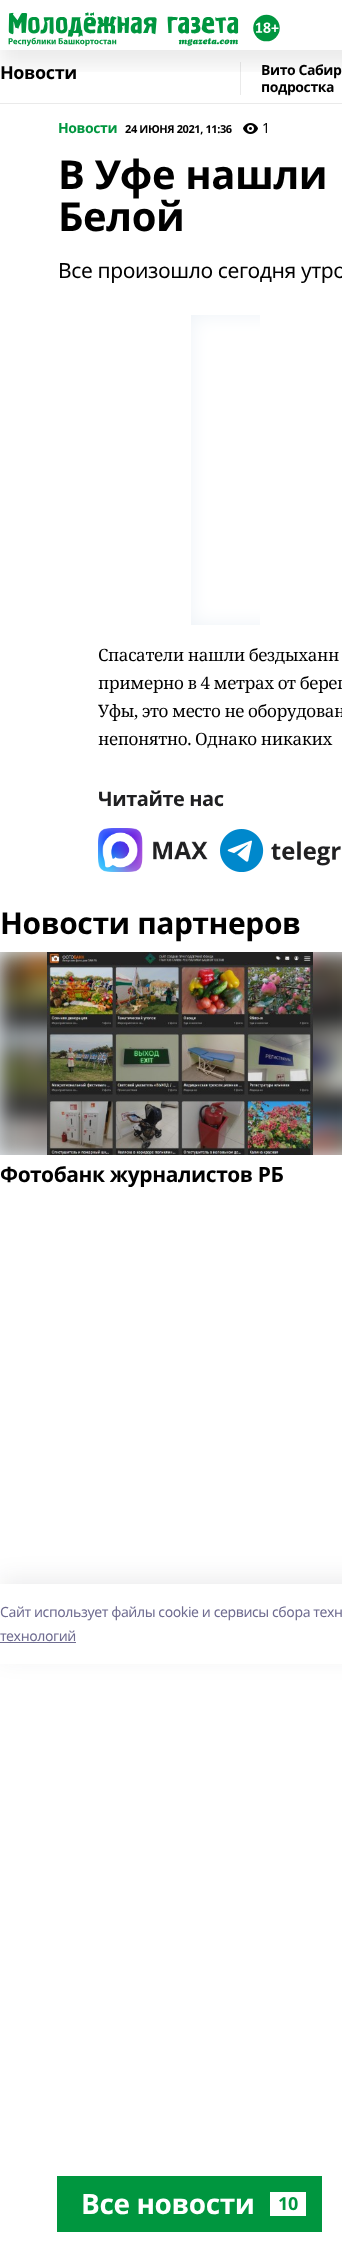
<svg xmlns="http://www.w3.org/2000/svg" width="342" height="2252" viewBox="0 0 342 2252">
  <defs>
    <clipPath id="clip1"><path d="M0 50h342v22H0z"/></clipPath>
    <clipPath id="clip2"><path d="M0 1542H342V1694H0ZM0 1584H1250V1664H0Z" clip-rule="evenodd"/></clipPath>
  </defs>
  <rect width="100%" height="100%" fill="#fff"/>
  <path d="M240 62h1v33H240z" fill="#eaeaea"/>
  <g clip-path="url(#clip1)">
    <path d="M0 15h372v50H0z" fill="#00000014" filter="blur(10px)"/>
  </g>
  <image x="8" y="12" width="272" height="34" href="img/1.png"/>
  <path d="M0 103h342v1H0z" fill="#eaeaea"/>
  <image x="243" y="123" width="15" height="11" href="img/2.png"/>
  <path d="M191 315h69v310H191z" fill="#edf2f7"/>
  <image x="191" y="315" width="69" height="310" href="img/3.png"/>
  <image x="98" y="828" width="110" height="44" href="img/4.png"/>
  <image x="220" y="829" width="121" height="43" href="img/5.png"/>
  <path d="M0 952h342v203H0z" fill="#edf2f7"/>
  <image x="0" y="952" width="342" height="203" href="img/6.png"/>
  <image x="47" y="952" width="266" height="203" href="img/7.png"/>
  <path d="M57 2176h265v56H57z" fill="#00963f"/>
  <path d="M270 2192h36v24H270z" fill="#fff"/>
  <g clip-path="url(#clip2)">
    <path d="M0 1578h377v80H0z" fill="#14142b14" filter="blur(11.5px)"/>
  </g>
  <path d="M0 1642h76v1H0z" fill="#6f6c90"/>
  <text x="0" y="79" font-family="Noto Sans" font-size="18" font-weight="bold" letter-spacing="-0.4" fill="#000">Новости</text>
  <g font-family="Noto Sans" font-size="14" font-weight="bold" letter-spacing="-0.4" fill="#000">
    <text x="261" y="75">Вито Сабир</text>
    <text x="261" y="92">подростка</text>
  </g>
  <text x="58" y="133" font-family="Noto Sans" font-size="14" font-weight="bold" letter-spacing="-0.4" fill="#00963f">Новости</text>
  <text x="125" y="133" font-family="Noto Sans" font-size="11" font-weight="bold" letter-spacing="-0.4" fill="#000">24 ИЮНЯ 2021, 11:36</text>
  <text x="262" y="133" font-family="Noto Sans" font-size="14" letter-spacing="-0.4" fill="#000">1</text>
  <g font-family="Noto Sans" font-size="40" font-weight="bold" letter-spacing="-0.4" fill="#000">
    <text x="58" y="189">В Уфе нашли</text>
    <text x="58" y="231">Белой</text>
  </g>
  <text x="58" y="278" font-family="Noto Sans" font-size="21" letter-spacing="-0.4" fill="#000">Все произошло сегодня утро</text>
  <g font-family="Noto Serif" font-size="17" letter-spacing="-0.4" fill="#000">
    <text x="98" y="661">Спасатели нашли бездыханн</text>
    <text x="98" y="689">примерно в 4 метрах от берег</text>
    <text x="98" y="717">Уфы, это место не оборудован</text>
    <text x="98" y="745">непонятно. Однако никаких</text>
  </g>
  <text x="98" y="806" font-family="Noto Sans" font-size="20" font-weight="bold" letter-spacing="-0.4" fill="#202022">Читайте нас</text>
  <text x="0" y="934" font-family="Noto Sans" font-size="30" font-weight="bold" letter-spacing="-0.4" fill="#000">Новости партнеров</text>
  <text x="0" y="1182" font-family="Noto Sans" font-size="21" font-weight="bold" letter-spacing="-0.4" fill="#000">Фотобанк журналистов РБ</text>
  <text x="81" y="2214" font-family="Noto Sans" font-size="28" font-weight="bold" letter-spacing="-0.4" fill="#fff">Все новости</text>
  <text x="278" y="2210" font-family="Noto Sans" font-size="18" font-weight="bold" letter-spacing="-0.4" fill="#00963f">10</text>
  <g font-family="Noto Sans" font-size="14" letter-spacing="-0.4" fill="#6f6c90">
    <text x="0" y="1617">Cайт использует файлы cookie и сервисы сбора техн</text>
    <text x="0" y="1641">технологий</text>
  </g>
</svg>
